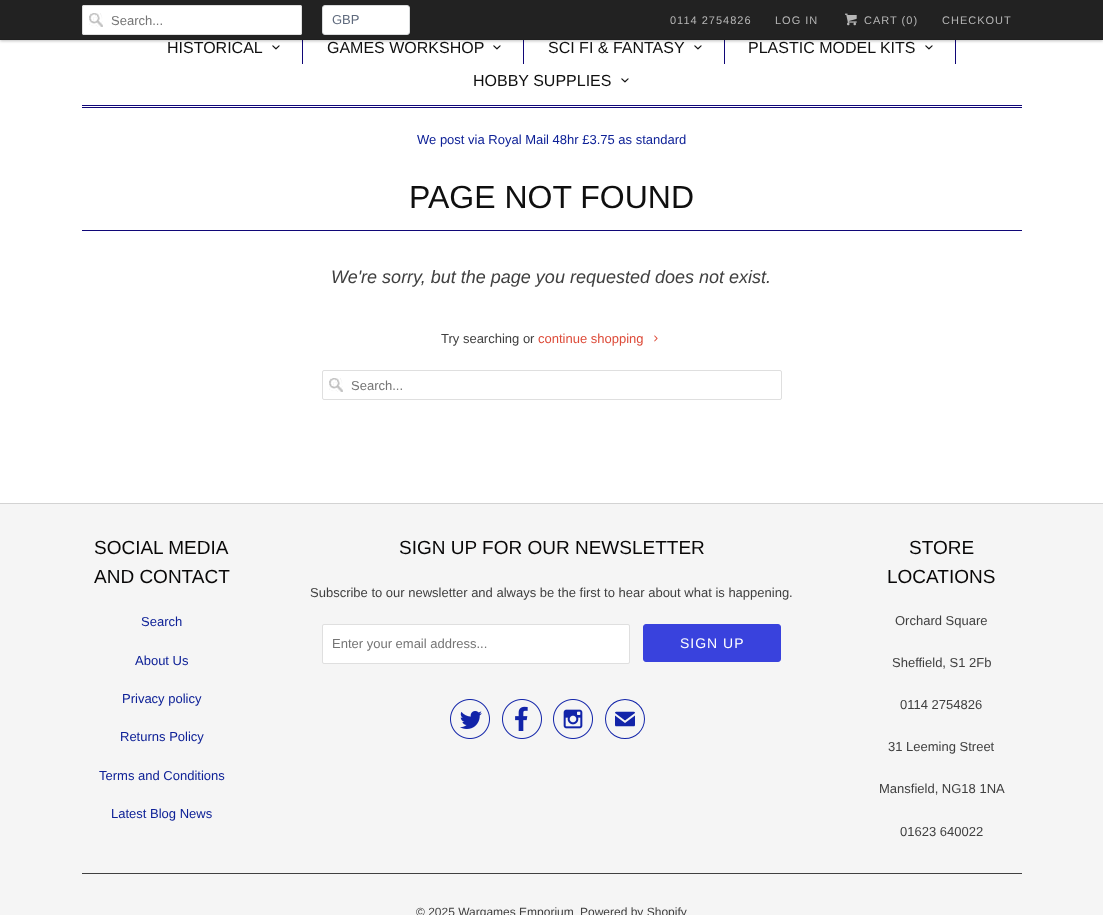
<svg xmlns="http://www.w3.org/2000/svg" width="1103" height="915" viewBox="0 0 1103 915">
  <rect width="100%" height="100%" fill="#fff"/>
  <path d="M302 40h1v24H302z" fill="#100777"/>
  <image x="272" y="45" width="8" height="5" href="img/3.png"/>
  <path d="M523 40h1v24H523z" fill="#100777"/>
  <image x="493" y="45" width="8" height="5" href="img/3.png"/>
  <path d="M724 40h1v24H724z" fill="#100777"/>
  <image x="694" y="45" width="8" height="5" href="img/3.png"/>
  <path d="M955 40h1v24H955z" fill="#100777"/>
  <image x="925" y="45" width="8" height="5" href="img/3.png"/>
  <path d="M0 1h1103v40H0z" fill="#00000040" filter="blur(1.5px)"/>
  <path d="M0 0h1103v39H0z" fill="#222"/>
  <path d="M0 39h1103v1H0z" fill="#1f1f1f"/>
  <rect x="82" y="5" width="220" height="30" rx="2" fill="#fff"/>
  <image x="89" y="13" width="14" height="14" href="img/1.png"/>
  <rect x="82.5" y="5.5" width="219" height="29" rx="1.5" fill="none" stroke="#dfdfdf"/>
  <rect x="322.5" y="5.5" width="87" height="29" rx="2.5" fill="#fff" stroke="#d9dbdc"/>
  <image x="845" y="13" width="12" height="13" href="img/2.png"/>
  <path d="M82 105h940v1H82z" fill="#100777"/>
  <path d="M82 107h940v1H82z" fill="#100777"/>
  <image x="621" y="78" width="8" height="5" href="img/3.png"/>
  <path d="M82 230h940v1H82z" fill="#100777"/>
  <image x="654" y="335" width="4" height="7" href="img/4.png"/>
  <image x="329" y="378" width="14" height="14" href="img/1.png"/>
  <rect x="322.5" y="370.5" width="459" height="29" rx="1.5" fill="none" stroke="#dfdfdf"/>
  <path d="M0 504h1103v411H0z" fill="#f5f5f5"/>
  <path d="M0 503h1103v1H0z" fill="#d3d3d3"/>
  <rect x="322.5" y="624.5" width="307" height="39" rx="1.5" fill="#fff" stroke="#dfdfdf"/>
  <rect x="643.5" y="624.5" width="137" height="37" rx="2.5" fill="#3942dd" stroke="#3942dd"/>
  <image x="450" y="699" width="40" height="40" href="img/5.png"/>
  <image x="502" y="699" width="40" height="40" href="img/6.png"/>
  <image x="553" y="699" width="40" height="40" href="img/7.png"/>
  <path d="M82 873h940v1H82z" fill="#404040"/>
  <text x="111" y="25" font-family="Liberation Sans" font-size="13" fill="#757575">Search...</text>
  <text x="332" y="24" font-family="Liberation Sans" font-size="13" fill="#5f6a7d">GBP</text>
  <g font-family="Liberation Sans" font-size="11" letter-spacing="1" fill="#b6b6b6">
    <text x="670" y="24">0114 2754826</text>
    <text x="775" y="24">LOG IN</text>
    <text x="864" y="24">CART (0)</text>
    <text x="942" y="24">CHECKOUT</text>
  </g>
  <g font-family="Liberation Sans" font-size="16" fill="#0f0f0f">
    <text x="167" y="53">HISTORICAL</text>
    <text x="327" y="53">GAMES WORKSHOP</text>
    <text x="548" y="53">SCI FI &amp; FANTASY</text>
    <text x="748" y="53">PLASTIC MODEL KITS</text>
    <text x="473" y="86">HOBBY SUPPLIES</text>
  </g>
  <text x="417" y="144" font-family="Liberation Sans" font-size="13" fill="#0e2197">We post via Royal Mail 48hr £3.75 as standard</text>
  <text x="409" y="208" font-family="Liberation Sans" font-size="32" fill="#0f0f0f">PAGE NOT FOUND</text>
  <text x="331" y="283" font-family="Liberation Sans" font-size="18" font-style="italic" fill="#404040">We're sorry, but the page you requested does not exist.</text>
  <text x="441" y="343" font-family="Liberation Sans" font-size="13" fill="#404040">Try searching or</text>
  <text x="538" y="343" font-family="Liberation Sans" font-size="13" fill="#dd4b39">continue shopping</text>
  <text x="351" y="390" font-family="Liberation Sans" font-size="13" fill="#757575">Search...</text>
  <g font-family="Liberation Sans" font-size="19" fill="#080707">
    <text x="94" y="554">SOCIAL MEDIA</text>
    <text x="94" y="583">AND CONTACT</text>
  </g>
  <g font-family="Liberation Sans" font-size="13" fill="#0e2197">
    <text x="141" y="626">Search</text>
    <text x="135" y="665">About Us</text>
    <text x="122" y="703">Privacy policy</text>
    <text x="120" y="741">Returns Policy</text>
    <text x="99" y="780">Terms and Conditions</text>
    <text x="111" y="818">Latest Blog News</text>
  </g>
  <text x="399" y="554" font-family="Liberation Sans" font-size="19" fill="#080707">SIGN UP FOR OUR NEWSLETTER</text>
  <text x="310" y="597" font-family="Liberation Sans" font-size="13" fill="#404040">Subscribe to our newsletter and always be the first to hear about what is happening.</text>
  <text x="332" y="648" font-family="Liberation Sans" font-size="13" fill="#757575">Enter your email address...</text>
  <text x="680" y="648" font-family="Liberation Sans" font-size="14" letter-spacing="1" fill="#fff">SIGN UP</text>
  <text x="605" y="739" font-family="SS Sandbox" font-size="40" fill="#1224a9">✉</text>
  <g font-family="Liberation Sans" font-size="19" fill="#080707">
    <text x="909" y="554">STORE</text>
    <text x="887" y="583">LOCATIONS</text>
  </g>
  <g font-family="Liberation Sans" font-size="13" fill="#404040">
    <text x="895" y="625">Orchard Square</text>
    <text x="892" y="667">Sheffield, S1 2Fb</text>
    <text x="900" y="709">0114 2754826</text>
    <text x="888" y="751">31 Leeming Street</text>
    <text x="879" y="793">Mansfield, NG18 1NA</text>
    <text x="900" y="836">01623 640022</text>
  </g>
  <g font-family="Liberation Sans" font-size="12" fill="#404040">
    <text x="416" y="916">© 2025 Wargames Emporium</text>
    <text x="580" y="916">Powered by Shopify</text>
  </g>
</svg>
